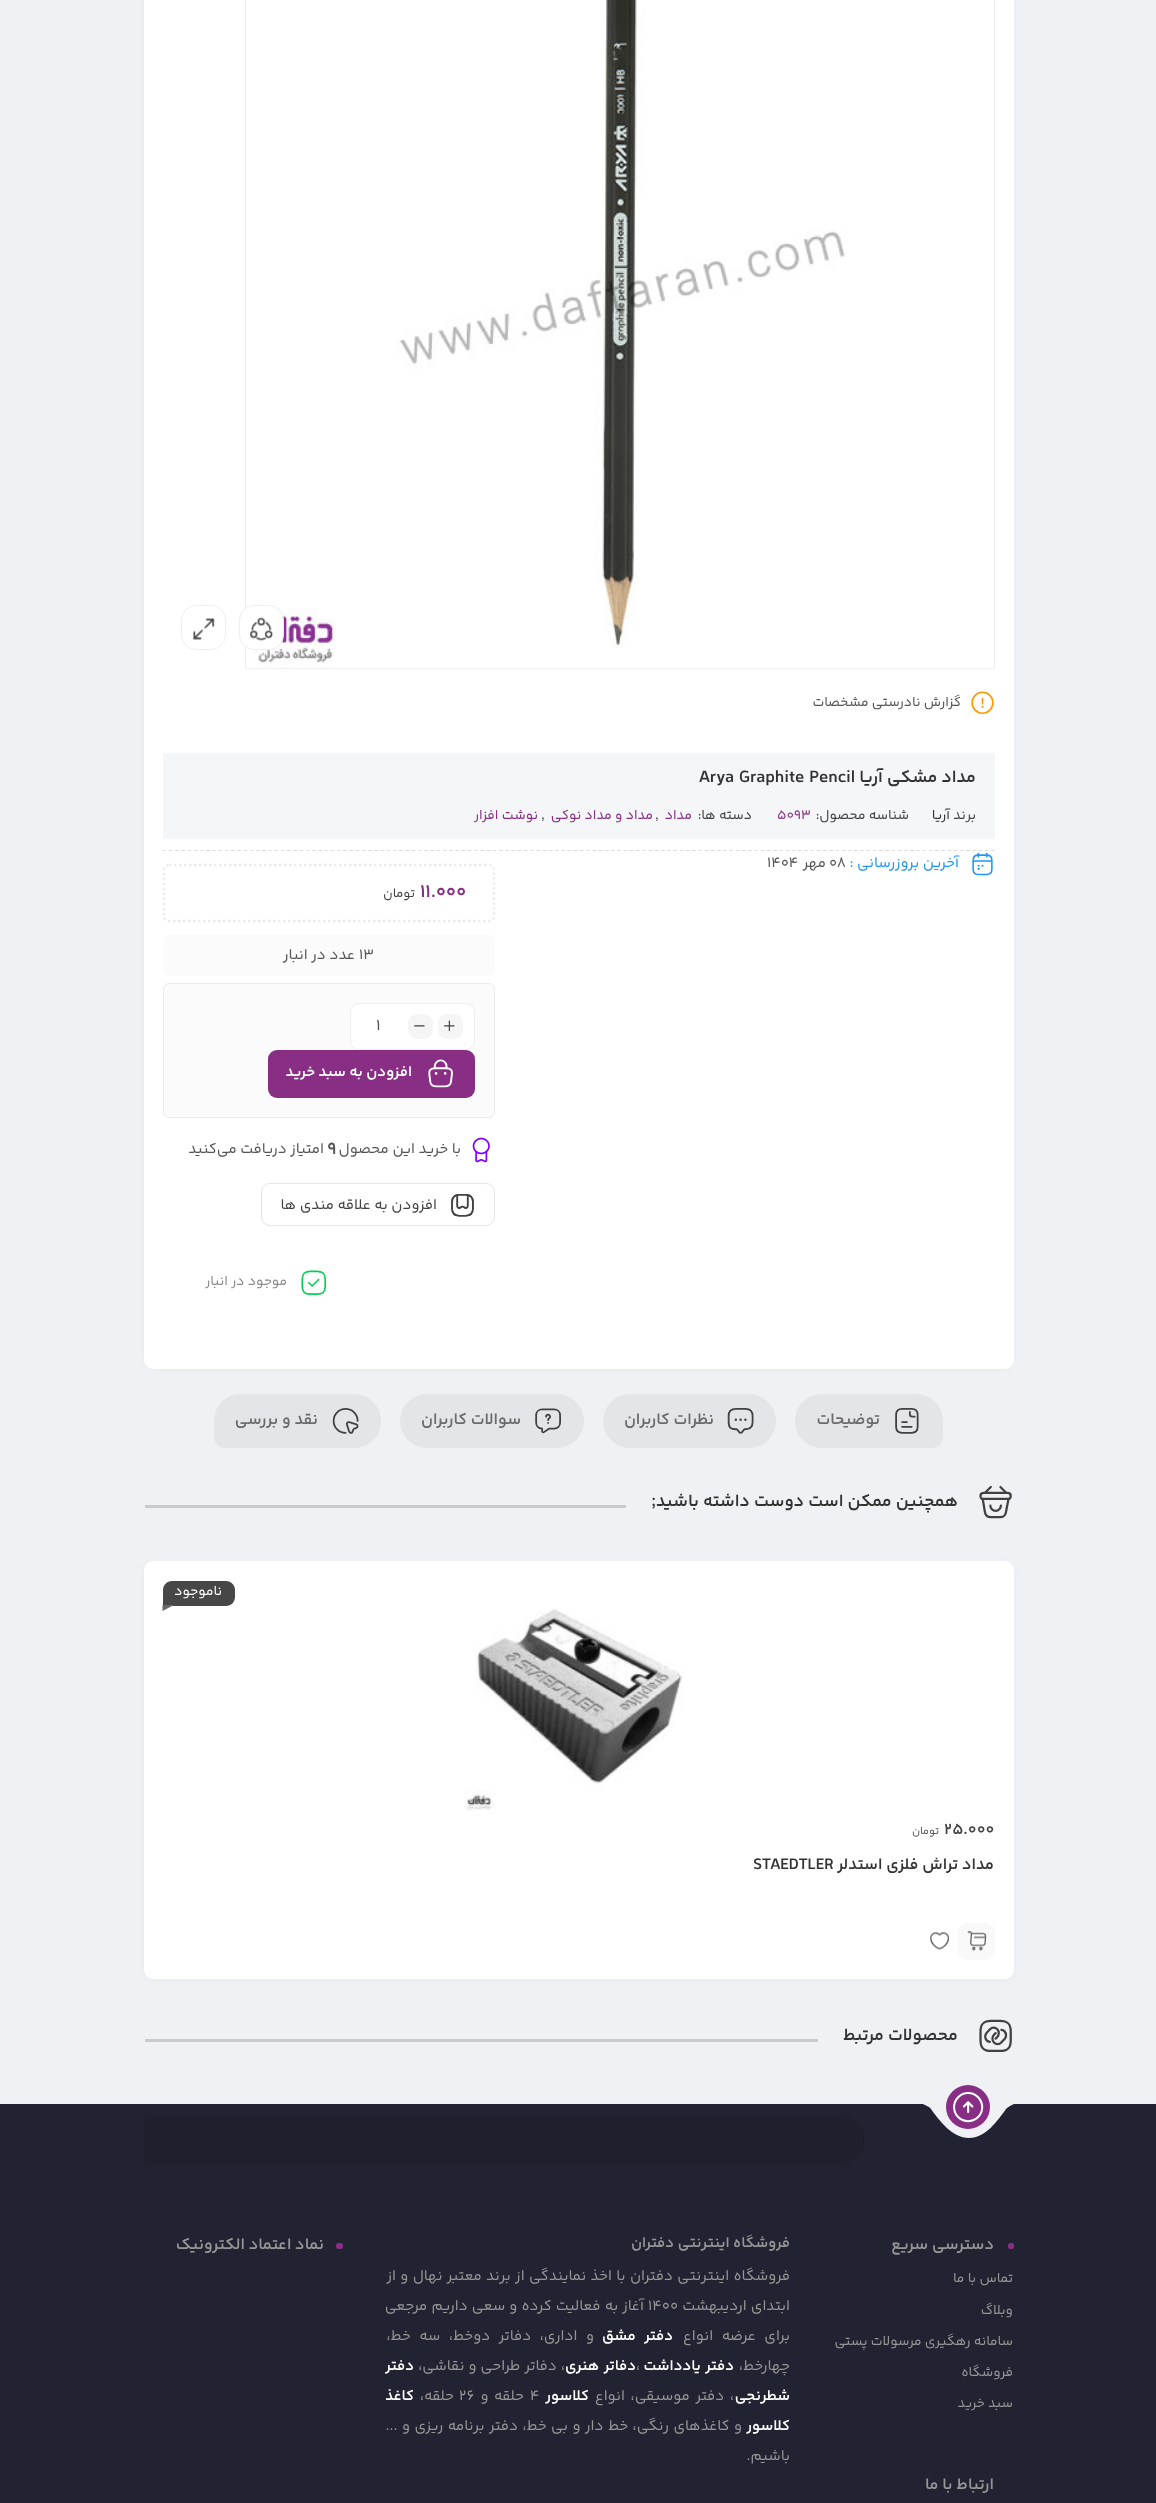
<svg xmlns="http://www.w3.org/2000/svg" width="1156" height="2503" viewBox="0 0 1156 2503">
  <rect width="100%" height="100%" fill="#eff1f5"/>
  <rect x="148" y="-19" width="862" height="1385" rx="5" fill="#0000001a" filter="blur(4.5px)"/>
  <rect x="144" y="-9" width="870" height="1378" rx="9" fill="#fff"/>
  <path d="M245.5 -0.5h749v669H245.5z" fill="none" stroke="#eee"/>
  <image x="256" y="0" width="589" height="668" href="img/1.png"/>
  <rect x="239.5" y="605.5" width="44" height="44" rx="14.5" fill="#fff" stroke="#eee"/>
  <image x="249" y="617" width="24" height="24" href="img/2.png"/>
  <rect x="181.5" y="605.5" width="44" height="44" rx="14.5" fill="none" stroke="#eee"/>
  <image x="193" y="618" width="22" height="22" href="img/3.png"/>
  <image x="971" y="691" width="23" height="23" href="img/4.png"/>
  <path d="M163 753h832v86H163z" fill="#f5f6f7"/>
  <path d="M162.5 850.5H995" fill="none" stroke="#ddd" stroke-width="1.2" stroke-dasharray="3.75 2.48"/>
  <image x="972" y="852" width="21" height="24" href="img/5.png"/>
  <path d="M169 865H489C491.5 865 494 867 494 870V916C494 919 491.5 921 489 921H169C166 921 164 919 164 916V870C164 867 166 865 169 865Z" fill="none" stroke="#ececec" stroke-width="2.5" stroke-dasharray="2.5 2.5"/>
  <rect x="163" y="935" width="332" height="41" rx="6" fill="#fbfbfb"/>
  <rect x="163.5" y="983.5" width="331" height="134" rx="5.5" fill="#fbfbfb" stroke="#ececec"/>
  <rect x="350.5" y="1003.5" width="124" height="46" rx="8.5" fill="#fff" stroke="#eee"/>
  <rect x="438" y="1014" width="25" height="25" rx="9" fill="#f5f5f5"/>
  <image x="444" y="1020" width="11" height="12" href="img/6.png"/>
  <rect x="408" y="1014" width="25" height="25" rx="9" fill="#f5f5f5"/>
  <image x="414" y="1025" width="11" height="2" href="img/7.png"/>
  <rect x="268" y="1050" width="207" height="48" rx="9" fill="#882e85"/>
  <image x="428" y="1059" width="25" height="29" href="img/8.png"/>
  <image x="472" y="1137" width="18" height="26" href="img/9.png"/>
  <rect x="261.5" y="1183.5" width="233" height="42" rx="8.5" fill="none" stroke="#e5e5e5"/>
  <image x="451" y="1194" width="23" height="23" href="img/10.png"/>
  <image x="301" y="1270" width="26" height="25" href="img/11.png"/>
  <path d="M822 1394H916C931 1394 943 1406 943 1421V1437C943 1443 938 1448 932 1448H822C807 1448 795 1436 795 1421C795 1406 807 1394 822 1394Z" fill="#e3e5e9"/>
  <image x="895" y="1408" width="24" height="26" href="img/12.png"/>
  <rect x="603" y="1394" width="173" height="54" rx="27" fill="#e3e5e9"/>
  <image x="727" y="1408" width="27" height="26" href="img/13.png"/>
  <rect x="400" y="1394" width="184" height="54" rx="27" fill="#e3e5e9"/>
  <image x="535" y="1408" width="26" height="26" href="img/14.png"/>
  <path d="M241 1394H354C369 1394 381 1406 381 1421C381 1436 369 1448 354 1448H225C219 1448 214 1443 214 1437V1421C214 1406 226 1394 241 1394Z" fill="#e3e5e9"/>
  <image x="332" y="1408" width="27" height="26" href="img/15.png"/>
  <image x="979" y="1485" width="33" height="34" href="img/16.png"/>
  <path d="M145 1505h481v3H145z" fill="#c8cacd"/>
  <rect x="148" y="1566" width="862" height="410" rx="5" fill="#0000001a" filter="blur(4.5px)"/>
  <rect x="144" y="1561" width="870" height="418" rx="9" fill="#fff"/>
  <path d="M172 1581H226C231 1581 235 1585 235 1590V1597C235 1602 231 1606 226 1606H163V1590C163 1585 167 1581 172 1581Z" fill="#474747"/>
  <path d="M162.5 1605H174L162.5 1611Z" fill="#686868"/>
  <image x="464" y="1608" width="220" height="203" href="img/17.png"/>
  <rect x="958" y="1923" width="37" height="37" rx="9" fill="#f9f9f9"/>
  <image x="967" y="1931" width="20" height="20" href="img/18.png"/>
  <image x="930" y="1932" width="20" height="19" href="img/19.png"/>
  <image x="979" y="2019" width="33" height="33" href="img/20.png"/>
  <path d="M145 2039h673v3H145z" fill="#c8cacd"/>
  <path d="M0 2104h1156v399H0z" fill="#222332"/>
  <path d="M1014 2104C1011 2105 1008 2107 1006 2109C998 2120 986 2138 969 2138C952 2138 939 2120 931 2109C930 2107 925 2105 923 2104Z" fill="#eff1f5" fill-rule="evenodd"/>
  <circle cx="968" cy="2107" r="22" fill="#882e85"/>
  <image x="953" y="2092" width="31" height="31" href="img/21.png"/>
  <path d="M149 2116H840C853.5 2116 864 2126.5 864 2140C864 2153.5 853.5 2164 840 2164H149C146 2164 144 2162 144 2159V2121C144 2118 146 2116 149 2116Z" fill="#1f202e"/>
  <path d="M863 2129h1v24H863z" fill="#0000001f"/>
  <rect x="1008" y="2243" width="6" height="6" rx="2.5" fill="#882e85"/>
  <rect x="336" y="2243" width="7" height="6" rx="2.5" fill="#882e85"/>
  <text x="961" y="706" font-family="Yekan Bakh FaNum" font-size="13.75" direction="rtl" fill="#555">گزارش نادرستی مشخصات</text>
  <text x="976" y="782" font-family="Yekan Bakh FaNum" font-size="17.5" font-weight="600" direction="rtl" fill="#333">مداد مشکی آریا</text>
  <text x="699" y="782" font-family="Yekan Bakh FaNum" font-size="17.5" font-weight="600" fill="#333">Arya Graphite Pencil</text>
  <text x="976" y="819" font-family="Yekan Bakh FaNum" font-size="13.75" direction="rtl" fill="#434343">برند</text>
  <text x="950" y="819" font-family="Yekan Bakh FaNum" font-size="13.75" direction="rtl" fill="#333">آریا</text>
  <text x="909" y="819" font-family="Yekan Bakh FaNum" font-size="13.75" direction="rtl" fill="#434343">شناسه محصول:</text>
  <text x="777" y="819" font-family="Yekan Bakh FaNum" font-size="13.75" fill="#882e85">5093</text>
  <text x="752" y="819" font-family="Yekan Bakh FaNum" font-size="13.75" direction="rtl" fill="#434343">دسته ها:</text>
  <text x="692" y="819" font-family="Yekan Bakh FaNum" font-size="13.75" direction="rtl" fill="#882e85">مداد</text>
  <text x="655" y="819" font-family="Yekan Bakh FaNum" font-size="13.75" fill="#434343">,</text>
  <text x="653" y="819" font-family="Yekan Bakh FaNum" font-size="13.75" direction="rtl" fill="#882e85">مداد و مداد نوکی</text>
  <text x="541" y="819" font-family="Yekan Bakh FaNum" font-size="13.75" fill="#434343">,</text>
  <text x="538" y="819" font-family="Yekan Bakh FaNum" font-size="13.75" direction="rtl" fill="#882e85">نوشت افزار</text>
  <text x="959" y="867" font-family="Yekan Bakh FaNum" font-size="15" direction="rtl" fill="#2196f3">آخرین بروزرسانی :</text>
  <text x="829" y="867" font-family="Yekan Bakh FaNum" font-size="15" fill="#555">۰۸</text>
  <text x="826" y="867" font-family="Yekan Bakh FaNum" font-size="15" direction="rtl" fill="#555">مهر</text>
  <text x="767" y="867" font-family="Yekan Bakh FaNum" font-size="15" fill="#555">۱۴۰۴</text>
  <text x="420" y="897" font-family="Yekan Bakh FaNum" font-size="19" font-weight="600" letter-spacing="-0.25" fill="#882e85">11.000</text>
  <text x="415" y="897" font-family="Yekan Bakh FaNum" font-size="13" letter-spacing="-0.25" direction="rtl" fill="#434343">تومان</text>
  <text x="359" y="959" font-family="Yekan Bakh FaNum" font-size="15" fill="#555">13</text>
  <text x="355" y="959" font-family="Yekan Bakh FaNum" font-size="15" direction="rtl" fill="#555">عدد در انبار</text>
  <text x="376" y="1030" font-family="Yekan Bakh FaNum" font-size="16.25" fill="#555">1</text>
  <text x="412" y="1076" font-family="Yekan Bakh FaNum" font-size="15" font-weight="600" direction="rtl" fill="#fff">افزودن به سبد خرید</text>
  <text x="461" y="1153" font-family="Yekan Bakh FaNum" font-size="15" direction="rtl" fill="#555">با خرید این محصول</text>
  <text x="327" y="1154" font-family="Yekan Bakh FaNum" font-size="18" font-weight="600" fill="#555">9</text>
  <text x="324" y="1153" font-family="Yekan Bakh FaNum" font-size="15" direction="rtl" fill="#555">امتیاز دریافت می‌کنید</text>
  <text x="437" y="1209" font-family="Yekan Bakh FaNum" font-size="15" direction="rtl" fill="#434343">افزودن به علاقه مندی ها</text>
  <text x="287" y="1285" font-family="Yekan Bakh FaNum" font-size="13.75" direction="rtl" fill="#898a8b">موجود در انبار</text>
  <g font-family="Yekan Bakh FaNum" font-size="16.25" font-weight="600" direction="rtl" fill="#6b6b6b">
    <text x="880" y="1424">توضیحات</text>
    <text x="714" y="1424">نظرات کاربران</text>
    <text x="521" y="1424">سوالات کاربران</text>
    <text x="318" y="1424">نقد و بررسی</text>
  </g>
  <text x="958" y="1506" font-family="Yekan Bakh FaNum" font-size="17.5" font-weight="600" direction="rtl" fill="#333">همچنین ممکن است دوست داشته باشید;</text>
  <text x="222" y="1595" font-family="Yekan Bakh FaNum" font-size="13.75" direction="rtl" fill="#fff">ناموجود</text>
  <text x="944" y="1834" font-family="Yekan Bakh FaNum" font-size="16.25" font-weight="600" fill="#434343">25.000</text>
  <text x="939" y="1834" font-family="Yekan Bakh FaNum" font-size="11" direction="rtl" fill="#555">تومان</text>
  <text x="994" y="1869" font-family="Yekan Bakh FaNum" font-size="16.25" font-weight="600" direction="rtl" fill="#333">مداد تراش فلزی استدلر</text>
  <text x="753" y="1869" font-family="Yekan Bakh FaNum" font-size="16.25" font-weight="600" fill="#333">STAEDTLER</text>
  <text x="958" y="2040" font-family="Yekan Bakh FaNum" font-size="17.5" font-weight="600" direction="rtl" fill="#333">محصولات مرتبط</text>
  <text x="994" y="2249" font-family="Yekan Bakh FaNum" font-size="16.25" font-weight="600" direction="rtl" fill="#969696">دسترسی سریع</text>
  <g font-family="Yekan Bakh FaNum" font-size="13.75" direction="rtl" fill="#969696">
    <text x="1013" y="2282">تماس با ما</text>
    <text x="1013" y="2314">وبلاگ</text>
    <text x="1013" y="2345">سامانه رهگیری مرسولات پستی</text>
    <text x="1013" y="2376">فروشگاه</text>
    <text x="1013" y="2407">سبد خرید</text>
  </g>
  <text x="790" y="2247" font-family="Yekan Bakh FaNum" font-size="15" font-weight="600" direction="rtl" fill="#969696">فروشگاه اینترنتی دفتران</text>
  <g font-family="Yekan Bakh FaNum" font-size="15" direction="rtl" fill="#969696">
    <text x="790" y="2280" word-spacing="0.75">فروشگاه اینترنتی دفتران با اخذ نمایندگی از برند معتبر نهال و از</text>
    <text x="790" y="2310" word-spacing="0.5">ابتدای اردیبهشت</text>
  </g>
  <text x="648" y="2310" font-family="Yekan Bakh FaNum" font-size="15" fill="#969696">1400</text>
  <g font-family="Yekan Bakh FaNum" font-size="15" direction="rtl" fill="#969696">
    <text x="644" y="2310" word-spacing="0.5">آغاز به فعالیت کرده و سعی داریم مرجعی</text>
    <text x="790" y="2340" word-spacing="5">برای عرضه انواع</text>
  </g>
  <text x="673" y="2340" word-spacing="5" font-family="Yekan Bakh FaNum" font-size="15" font-weight="600" direction="rtl" fill="#fff">دفتر مشق</text>
  <g font-family="Yekan Bakh FaNum" font-size="15" direction="rtl" fill="#969696">
    <text x="594" y="2340" word-spacing="5">و اداری، دفاتر دوخط، سه خط،</text>
    <text x="790" y="2370">چهارخط،</text>
  </g>
  <text x="734" y="2370" word-spacing="1" font-family="Yekan Bakh FaNum" font-size="15" font-weight="600" direction="rtl" fill="#fff">دفتر یادداشت</text>
  <text x="636" y="2370" font-family="Yekan Bakh FaNum" font-size="15" fill="#969696">،</text>
  <text x="636" y="2370" word-spacing="1" font-family="Yekan Bakh FaNum" font-size="15" font-weight="600" direction="rtl" fill="#fff">دفاتر هنری</text>
  <text x="565" y="2370" word-spacing="0.5" font-family="Yekan Bakh FaNum" font-size="15" direction="rtl" fill="#969696">، دفاتر طراحی و نقاشی،</text>
  <g font-family="Yekan Bakh FaNum" font-size="15" font-weight="600" direction="rtl" fill="#fff">
    <text x="414" y="2370">دفتر</text>
    <text x="790" y="2400">شطرنجی</text>
  </g>
  <text x="734" y="2400" word-spacing="2" font-family="Yekan Bakh FaNum" font-size="15" direction="rtl" fill="#969696">، دفتر موسیقی، انواع</text>
  <text x="589" y="2400" font-family="Yekan Bakh FaNum" font-size="15" font-weight="600" direction="rtl" fill="#fff">کلاسور</text>
  <text x="530" y="2400" font-family="Yekan Bakh FaNum" font-size="15" fill="#969696">4</text>
  <text x="524" y="2400" word-spacing="2" font-family="Yekan Bakh FaNum" font-size="15" direction="rtl" fill="#969696">حلقه و</text>
  <text x="459" y="2400" font-family="Yekan Bakh FaNum" font-size="15" fill="#969696">26</text>
  <text x="454" y="2400" font-family="Yekan Bakh FaNum" font-size="15" direction="rtl" fill="#969696">حلقه،</text>
  <g font-family="Yekan Bakh FaNum" font-size="15" font-weight="600" direction="rtl" fill="#fff">
    <text x="414" y="2400">کاغذ</text>
    <text x="790" y="2430">کلاسور</text>
  </g>
  <g font-family="Yekan Bakh FaNum" font-size="15" direction="rtl" fill="#969696">
    <text x="742" y="2430" word-spacing="0.9">و کاغذهای رنگی، خط دار و بی خط، دفتر برنامه ریزی و ...</text>
    <text x="790" y="2460">باشیم.</text>
  </g>
  <g font-family="Yekan Bakh FaNum" font-size="16.25" font-weight="600" direction="rtl" fill="#969696">
    <text x="324" y="2249">نماد اعتماد الکترونیک</text>
    <text x="994" y="2489">ارتباط با ما</text>
  </g>
</svg>
